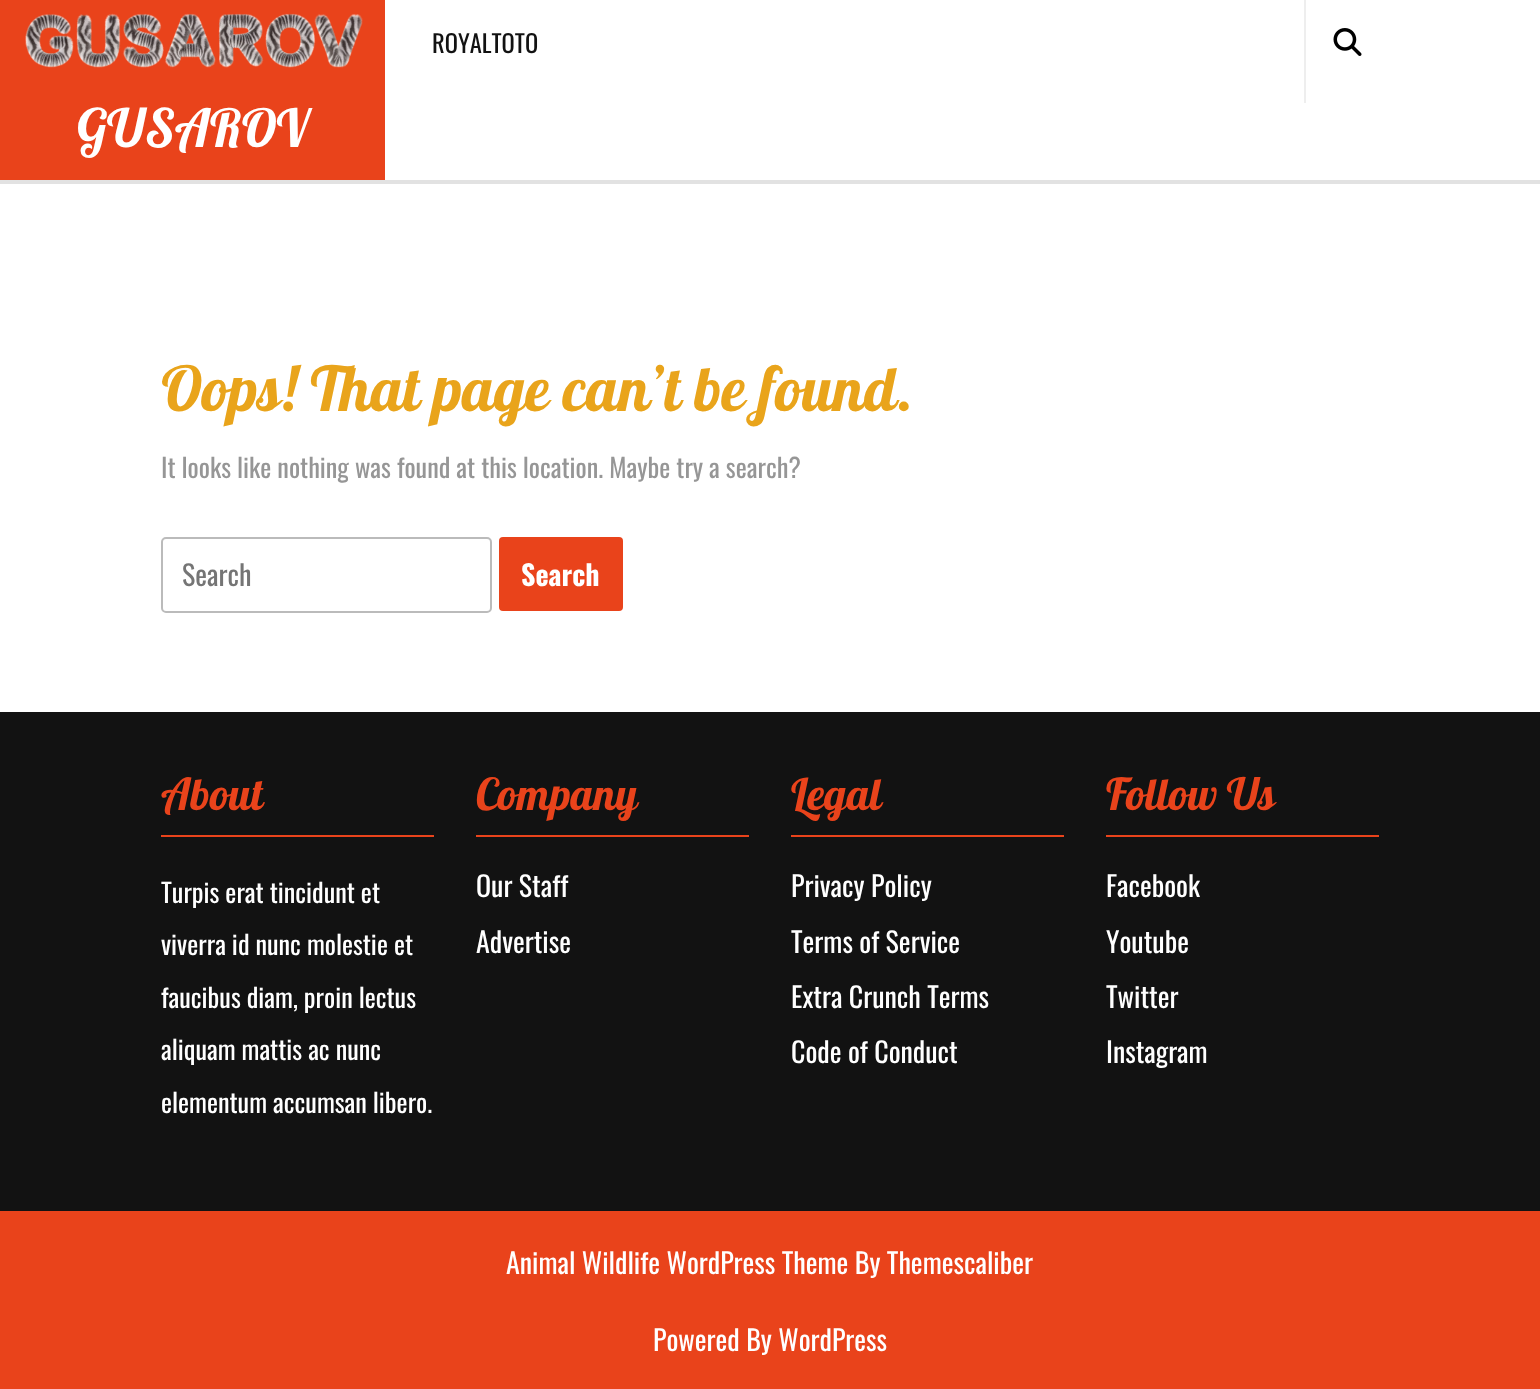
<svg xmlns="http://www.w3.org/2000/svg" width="1540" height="1389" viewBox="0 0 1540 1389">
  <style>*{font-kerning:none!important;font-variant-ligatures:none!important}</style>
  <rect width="100%" height="100%" fill="#fff"/>
  <path d="M0 180h1540v4H0z" fill="#e2e2e2"/>
  <path d="M1304 0h2v103H1304z" fill="#eee"/>
  <image x="1333" y="28" width="29" height="28" href="img/1.png"/>
  <path d="M0 0h385v180H0z" fill="#e9431b"/>
  <image x="25" y="13" width="338" height="55" href="img/2.png"/>
  <rect x="162" y="538" width="329" height="74" rx="4" fill="none" stroke="#bbb" stroke-width="2"/>
  <rect x="499" y="537" width="124" height="74" rx="4" fill="#e9431b"/>
  <path d="M0 712h1540v499H0z" fill="#121212"/>
  <path d="M161 835h273v2H161z" fill="#e9431b"/>
  <path d="M476 835h273v2H476z" fill="#e9431b"/>
  <path d="M791 835h273v2H791z" fill="#e9431b"/>
  <path d="M1106 835h273v2H1106z" fill="#e9431b"/>
  <path d="M0 1211h1540v178H0z" fill="#e9431b"/>
  <text x="432" y="53" font-family="Oswald" font-size="24.5" fill="#121212">ROYALTOTO</text>
  <text x="77" y="147" font-family="Lobster" font-size="52.5" fill="#fff">GUSAROV</text>
  <text x="161" y="411" font-family="Lobster" font-size="61.6" fill="#e9a41b">Oops! That page can’t be</text>
  <text x="759" y="411" font-family="Lobster" font-size="61.6" fill="#e9a41b">found.</text>
  <text x="161" y="478" font-family="Oswald" font-size="26.25" fill="#969696">It looks like nothing was found at this location. Maybe try a search?</text>
  <text x="182" y="586" font-family="Oswald" font-size="28" fill="#757575">Search</text>
  <text x="521" y="586" font-family="Oswald" font-size="28" font-weight="bold" fill="#fff">Search</text>
  <text x="161" y="810" font-family="Lobster" font-size="44" fill="#e9431b">About</text>
  <g font-family="Oswald" font-size="26.25" fill="#fff">
    <text x="161" y="903">Turpis erat tincidunt et</text>
    <text x="161" y="955">viverra id nunc molestie et</text>
    <text x="161" y="1008">faucibus diam, proin lectus</text>
    <text x="161" y="1060">aliquam mattis ac nunc</text>
    <text x="161" y="1113">elementum accumsan libero.</text>
  </g>
  <text x="476" y="810" font-family="Lobster" font-size="44" fill="#e9431b">Company</text>
  <g font-family="Oswald" font-size="28" fill="#fff">
    <text x="476" y="897">Our Staff</text>
    <text x="476" y="953">Advertise</text>
  </g>
  <text x="791" y="810" font-family="Lobster" font-size="44" fill="#e9431b">Legal</text>
  <g font-family="Oswald" font-size="28" fill="#fff">
    <text x="791" y="897">Privacy Policy</text>
    <text x="791" y="953">Terms of Service</text>
    <text x="791" y="1008">Extra Crunch Terms</text>
    <text x="791" y="1063">Code of Conduct</text>
  </g>
  <text x="1106" y="810" font-family="Lobster" font-size="44" fill="#e9431b">Follow Us</text>
  <g font-family="Oswald" font-size="28" fill="#fff">
    <text x="1106" y="897">Facebook</text>
    <text x="1106" y="953">Youtube</text>
    <text x="1106" y="1008">Twitter</text>
    <text x="1106" y="1063">Instagram</text>
    <text x="506" y="1274">Animal Wildlife WordPress Theme By Themescaliber</text>
    <text x="653" y="1351">Powered By WordPress</text>
  </g>
</svg>
